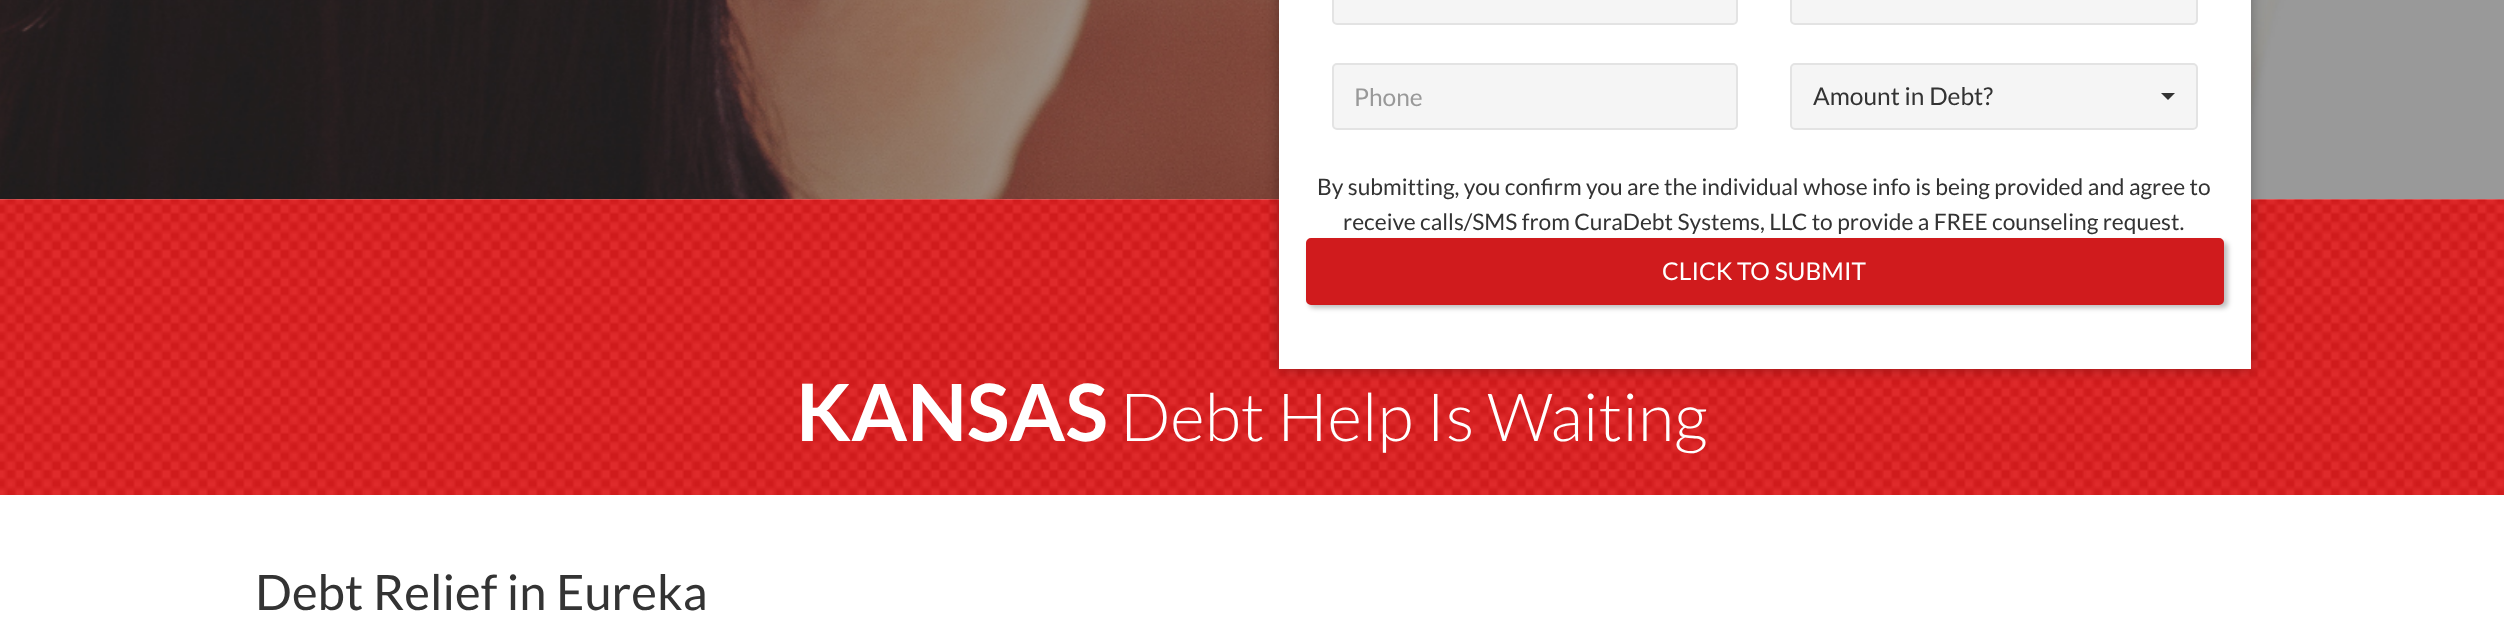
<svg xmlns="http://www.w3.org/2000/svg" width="2504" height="631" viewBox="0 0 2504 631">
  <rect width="100%" height="100%" fill="#fff"/>
  <image x="0" y="0" width="2504" height="200" href="img/1.png"/>
  <image x="0" y="199" width="2504" height="296" href="img/2.png"/>
  <path d="M1279 -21h972v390H1279z" fill="#0000004d" filter="blur(7px)"/>
  <path d="M1279 0h972v369H1279z" fill="#fff"/>
  <rect x="1333" y="-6" width="404" height="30" rx="4" fill="#f5f5f5" stroke="#e3e3e3" stroke-width="2"/>
  <rect x="1791" y="-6" width="406" height="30" rx="4" fill="#f5f5f5" stroke="#e3e3e3" stroke-width="2"/>
  <rect x="1333" y="64" width="404" height="65" rx="4" fill="#f5f5f5" stroke="#e3e3e3" stroke-width="2"/>
  <rect x="1791" y="64" width="406" height="65" rx="4" fill="#f5f5f5" stroke="#e3e3e3" stroke-width="2"/>
  <path d="M2161 93H2175L2168 100Z" fill="#333"/>
  <rect x="1309" y="242" width="919" height="66" rx="5" fill="#00000040" filter="blur(2.5px)"/>
  <rect x="1307" y="239" width="916" height="65" rx="4" fill="#d01b1d" stroke="#d01b1d" stroke-width="2"/>
  <text x="1354" y="106" font-family="Lato" font-size="24.5" fill="#999">Phone</text>
  <text x="1813" y="105" font-family="Lato" font-size="24.5" fill="#333">Amount in Debt?</text>
  <g font-family="Lato" font-size="22.75" fill="#333">
    <text x="1317" y="195">By submitting, you confirm you are the individual whose info is being provided and agree to</text>
    <text x="1343" y="230">receive calls/SMS from CuraDebt Systems, LLC to provide a FREE counseling request.</text>
  </g>
  <text x="1662" y="280" font-family="Lato" font-size="24.5" fill="#fff">CLICK TO SUBMIT</text>
  <text x="796" y="441" font-family="Lato" font-size="79" font-weight="bold" fill="#fff">KANSAS</text>
  <text x="1120" y="441" font-family="Lato" font-size="66.5" font-weight="300" fill="#fff">Debt Help Is Waiting</text>
  <text x="255" y="610" font-family="Lato" font-size="49" fill="#333">Debt Relief in Eureka</text>
</svg>
